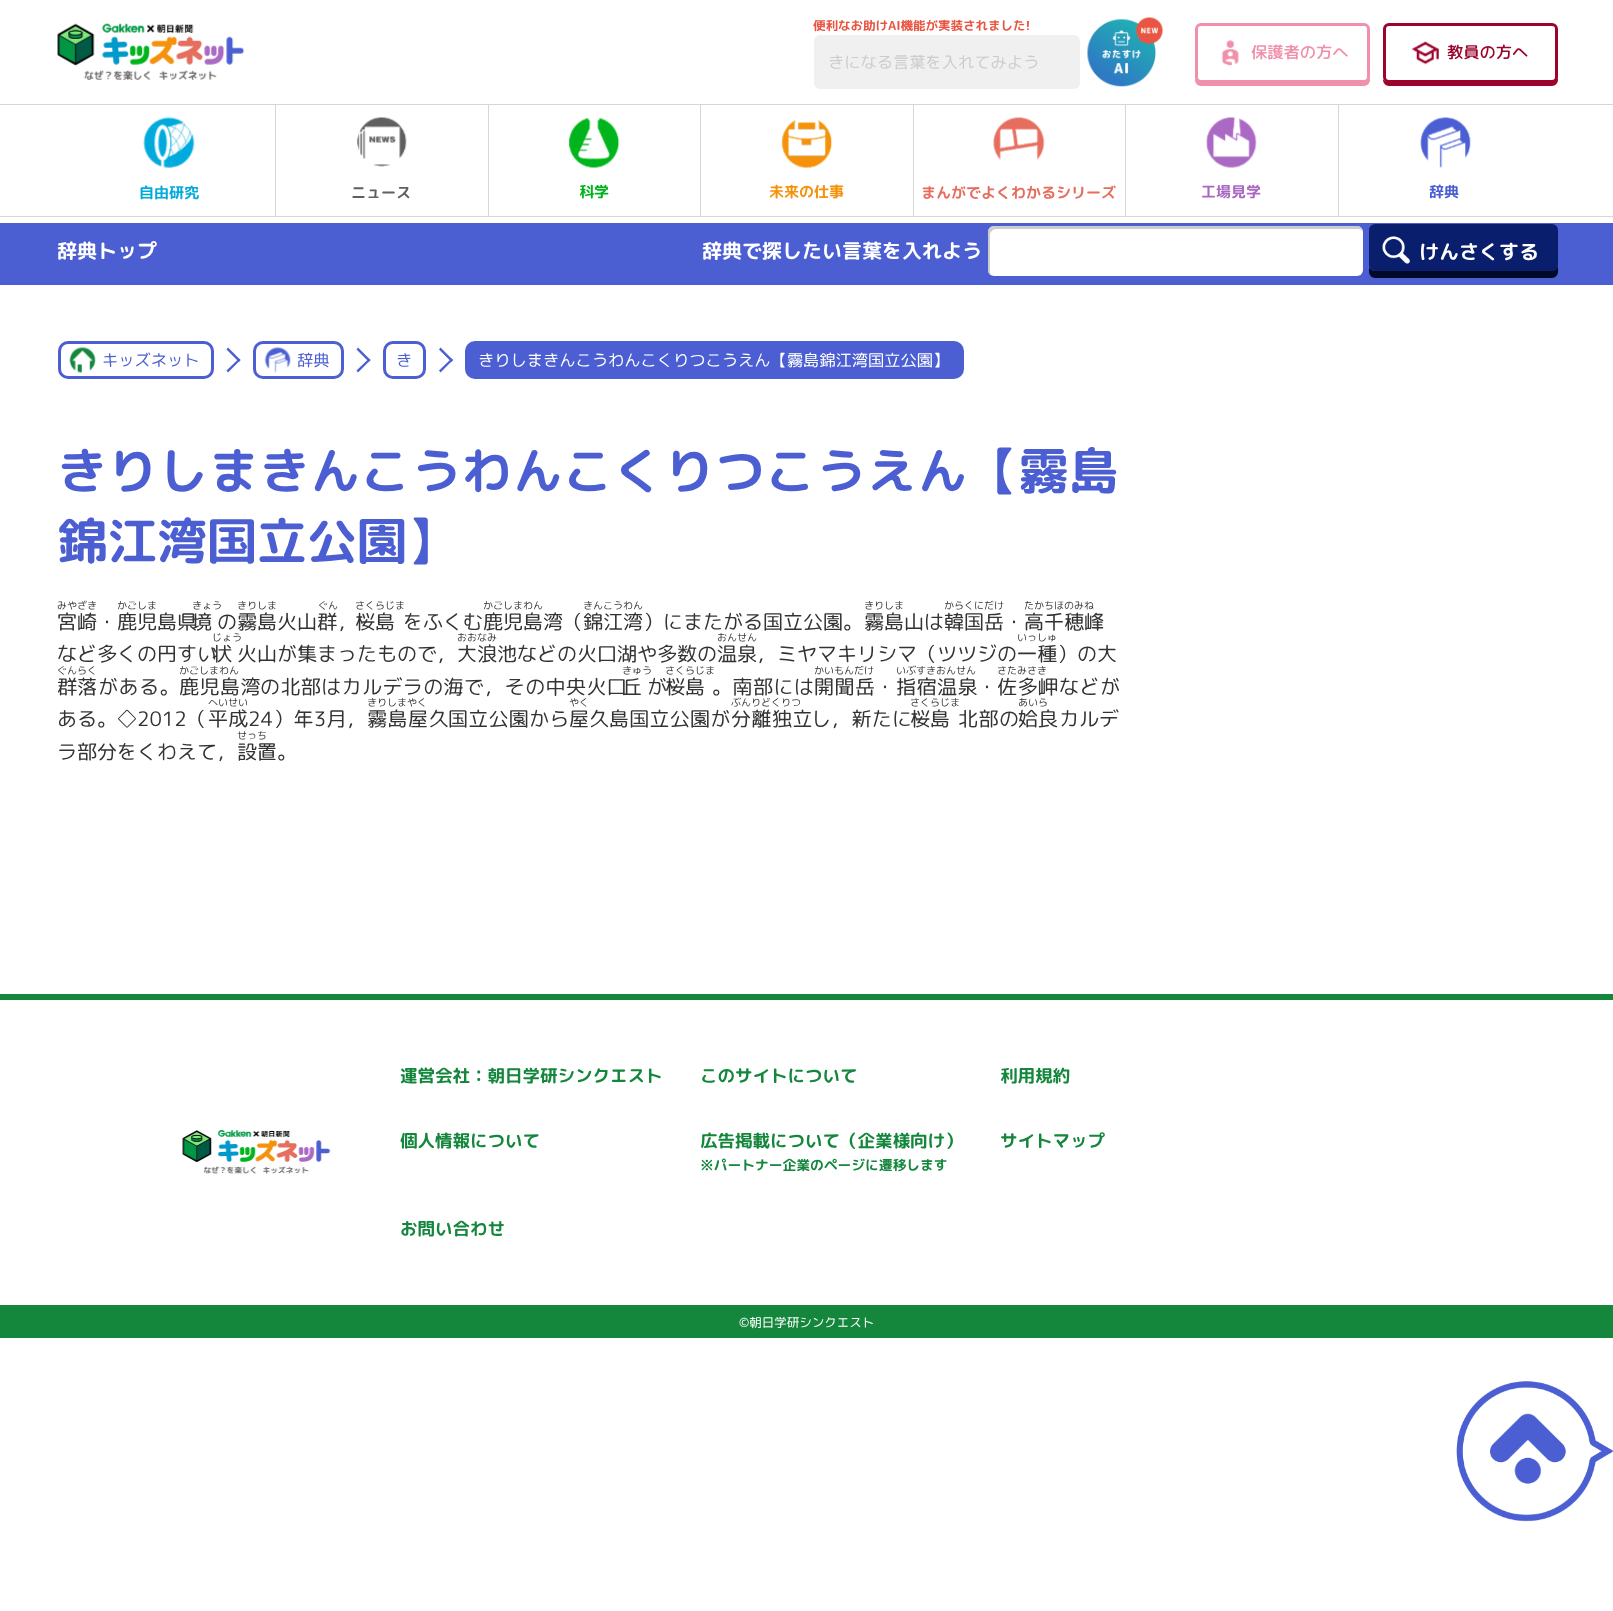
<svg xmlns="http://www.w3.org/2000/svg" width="1613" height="1611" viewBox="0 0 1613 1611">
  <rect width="100%" height="100%" fill="#fff"/>
  <image x="57" y="23" width="188" height="57" href="img/1.png"/>
  <rect x="814" y="35" width="266" height="54" rx="6" fill="#f1f0f0"/>
  <image x="1087" y="17" width="76" height="70" href="img/2.png"/>
  <path d="M1195 76V80C1195 83 1198 86 1201 86H1364C1367 86 1370 83 1370 80V76C1370 80 1367 82 1364 82H1201C1198 82 1195 80 1195 76Z" fill="#f090aa"/>
  <rect x="1196.5" y="24.5" width="172" height="57" rx="4.5" fill="none" stroke="#f090aa" stroke-width="3"/>
  <image x="1221" y="40" width="18" height="26" href="img/3.png"/>
  <path d="M1383 79V80C1383 83 1386 86 1389 86H1552C1555 86 1558 83 1558 80V32V30V76C1558 80 1555 82 1551 82H1389C1386 82 1384 81 1383 79Z" fill="#9b052d"/>
  <rect x="1384.5" y="24.5" width="172" height="57" rx="4.5" fill="none" stroke="#9b052d" stroke-width="3"/>
  <image x="1411" y="41" width="28" height="24" href="img/4.png"/>
  <path d="M0 104h1613v1H0z" fill="#d6d6d6"/>
  <path d="M0 216h1613v1H0z" fill="#d6d6d6"/>
  <path d="M275 105h1v111H275z" fill="#d6d6d6"/>
  <image x="143" y="116" width="52" height="52" href="img/5.png"/>
  <path d="M488 105h1v111H488z" fill="#d6d6d6"/>
  <image x="357" y="117" width="50" height="50" href="img/6.png"/>
  <path d="M700 105h1v111H700z" fill="#d6d6d6"/>
  <image x="568" y="117" width="52" height="51" href="img/7.png"/>
  <path d="M913 105h1v111H913z" fill="#d6d6d6"/>
  <image x="781" y="119" width="51" height="49" href="img/8.png"/>
  <path d="M1125 105h1v111H1125z" fill="#d6d6d6"/>
  <image x="993" y="117" width="52" height="43" href="img/9.png"/>
  <path d="M1338 105h1v111H1338z" fill="#d6d6d6"/>
  <image x="1206" y="117" width="51" height="51" href="img/10.png"/>
  <image x="1420" y="117" width="51" height="51" href="img/11.png"/>
  <path d="M0 223h1613v62H0z" fill="#4b5fd2"/>
  <rect x="988" y="226" width="375" height="50" rx="6" fill="#fff"/>
  <path d="M996 229H1359C1360 229 1362 230 1363 231C1362 228 1360 226 1357 226H994C991 226 988 229 988 232V270C988 272 989 274 991 275L990 272V235C990 232 993 229 996 229Z" fill="#ccc"/>
  <path d="M1369 267V272C1369 275 1372 278 1375 278H1552C1555 278 1558 275 1558 272V236V234V265C1558 268 1555 271 1551 271H1375C1372 271 1370 269 1369 267Z" fill="#000a28"/>
  <rect x="1369" y="224" width="189" height="47" rx="6" fill="#0a1e6e"/>
  <image x="1382" y="236" width="28" height="28" href="img/12.png"/>
  <rect x="59.5" y="342.5" width="153" height="35" rx="8.5" fill="none" stroke="#4b5fd2" stroke-width="3"/>
  <image x="69" y="347" width="27" height="26" href="img/13.png"/>
  <path d="M228 347.5L240.5 360L239 362L226.5 349.5Z" fill="#4b5fd2"/>
  <path d="M239 358.5L240.5 360L228 372.5L226.5 370.5Z" fill="#4b5fd2"/>
  <rect x="254.5" y="342.5" width="88" height="35" rx="8.5" fill="none" stroke="#4b5fd2" stroke-width="3"/>
  <image x="264" y="347" width="27" height="26" href="img/14.png"/>
  <path d="M358 347.5L370.5 360L369 362L356.5 349.5Z" fill="#4b5fd2"/>
  <path d="M369 358.5L370.5 360L358 372.5L356.5 370.5Z" fill="#4b5fd2"/>
  <rect x="384.5" y="342.5" width="40" height="35" rx="8.5" fill="none" stroke="#4b5fd2" stroke-width="3"/>
  <path d="M440.5 347.5L453 360L451.5 362L439 349.5Z" fill="#4b5fd2"/>
  <path d="M451.5 358.5L453 360L440.5 372.5L439 370.5Z" fill="#4b5fd2"/>
  <rect x="466.5" y="342.5" width="496" height="35" rx="8.5" fill="#4b5fd2" stroke="#4b5fd2" stroke-width="3"/>
  <path d="M0 994h1613v6H0z" fill="#14873d"/>
  <image x="182" y="1130" width="149" height="44" href="img/15.png"/>
  <path d="M0 1305h1613v33H0z" fill="#14873d"/>
  <image x="1456" y="1381" width="157" height="141" href="img/16.png"/>
  <image x="1490" y="1413" width="76" height="71" href="img/17.png"/>
  <text x="813" y="30" font-family="'Rounded Mplus 1c Bold'" font-size="12.5" font-weight="bold" fill="#e85643">便利なお助けAI機能が実装されました!</text>
  <text x="828" y="68" font-family="'Rounded Mplus 1c'" font-size="16.25" fill="#ccc">きになる言葉を入れてみよう</text>
  <text x="1251" y="58" font-family="'Rounded Mplus 1c'" font-size="16.25" font-weight="500" fill="#f090aa">保護者の方へ</text>
  <text x="1447" y="58" font-family="'Rounded Mplus 1c'" font-size="16.25" font-weight="500" fill="#9b052d">教員の方へ</text>
  <text x="139" y="198" font-family="'Rounded Mplus 1c Bold'" font-size="15" font-weight="bold" fill="#03aadc">自由研究</text>
  <text x="351" y="198" font-family="'Rounded Mplus 1c Bold'" font-size="15" font-weight="bold" fill="#606060">ニュース</text>
  <text x="579" y="197" font-family="'Rounded Mplus 1c Bold'" font-size="15" font-weight="bold" fill="#00b41e">科学</text>
  <text x="769" y="197" font-family="'Rounded Mplus 1c Bold'" font-size="15" font-weight="bold" fill="#f5910a">未来の仕事</text>
  <text x="921" y="198" font-family="'Rounded Mplus 1c Bold'" font-size="15" font-weight="bold" fill="#e66e5f">まんがでよくわかるシリーズ</text>
  <text x="1201" y="197" font-family="'Rounded Mplus 1c Bold'" font-size="15" font-weight="bold" fill="#aa69c3">工場見学</text>
  <text x="1429" y="197" font-family="'Rounded Mplus 1c Bold'" font-size="15" font-weight="bold" fill="#4b5fd2">辞典</text>
  <g font-family="'Rounded Mplus 1c Bold'" font-size="20" font-weight="bold" fill="#fff">
    <text x="57" y="258">辞典トップ</text>
    <text x="702" y="258">辞典で探したい言葉を入れよう</text>
    <text x="1419" y="259">けんさくする</text>
  </g>
  <g font-family="'Rounded Mplus 1c'" font-size="16.25" fill="#4b5fd2">
    <text x="102" y="366">キッズネット</text>
    <text x="297" y="366">辞典</text>
    <text x="396" y="366">き</text>
  </g>
  <text x="478" y="366" font-family="'Rounded Mplus 1c'" font-size="16.25" fill="#fff">きりしまきんこうわんこくりつこうえん【霧島錦江湾国立公園】</text>
  <text x="57" y="489" font-family="'Rounded Mplus 1c Bold'" font-size="50" font-weight="bold" letter-spacing="0.6" fill="#4b5fd2">きりしまきんこうわんこくりつこうえん【霧島</text>
  <text x="57" y="559" font-family="'Rounded Mplus 1c Bold'" font-size="50" font-weight="bold" fill="#4b5fd2">錦江湾国立公園】</text>
  <text x="57" y="609" font-family="'Rounded Mplus 1c'" font-size="10" fill="#333">みやざき</text>
  <text x="57" y="629" font-family="'Rounded Mplus 1c'" font-size="20" fill="#333">宮崎・鹿児島県</text>
  <g font-family="'Rounded Mplus 1c'" font-size="10" fill="#333">
    <text x="117" y="609">かごしま</text>
    <text x="192" y="609">きょう</text>
  </g>
  <text x="192" y="629" font-family="'Rounded Mplus 1c'" font-size="20" fill="#333">境</text>
  <g font-family="'Rounded Mplus 1c'" font-size="10" fill="#333">
    <text x="237" y="609">きりしま</text>
    <text x="318" y="609">ぐん</text>
    <text x="355" y="609">さくらじま</text>
  </g>
  <text x="355" y="629" font-family="'Rounded Mplus 1c'" font-size="20" fill="#333">桜島</text>
  <g font-family="'Rounded Mplus 1c'" font-size="10" fill="#333">
    <text x="483" y="609">かごしまわん</text>
    <text x="583" y="609">きんこうわん</text>
    <text x="944" y="609">からくにだけ</text>
    <text x="1024" y="609">たかちほのみね</text>
  </g>
  <g font-family="'Rounded Mplus 1c'" font-size="20" fill="#333">
    <text x="217" y="629">の霧島火山群</text>
    <text x="338" y="629">，</text>
    <text x="403" y="629">をふくむ鹿児島湾</text>
    <text x="563" y="629">（錦江湾</text>
    <text x="643" y="629">）にまたがる国立公園。</text>
  </g>
  <text x="864" y="609" font-family="'Rounded Mplus 1c'" font-size="10" fill="#333">きりしま</text>
  <g font-family="'Rounded Mplus 1c'" font-size="20" fill="#333">
    <text x="864" y="629">霧島山は韓国岳</text>
    <text x="1004" y="629">・高千穂峰</text>
  </g>
  <g font-family="'Rounded Mplus 1c'" font-size="10" fill="#333">
    <text x="212" y="641">じょう</text>
    <text x="457" y="641">おおなみ</text>
    <text x="717" y="641">おんせん</text>
    <text x="1017" y="641">いっしゅ</text>
  </g>
  <g font-family="'Rounded Mplus 1c'" font-size="20" fill="#333">
    <text x="57" y="661">など多くの円すい</text>
    <text x="212" y="661">状</text>
    <text x="237" y="661">火山が集まったもので，大浪池などの火口湖や多数の温泉，ミヤマキリシマ（ツツジの一種）の大</text>
  </g>
  <text x="57" y="674" font-family="'Rounded Mplus 1c'" font-size="10" fill="#333">ぐんらく</text>
  <text x="57" y="694" font-family="'Rounded Mplus 1c'" font-size="20" fill="#333">群落</text>
  <text x="98" y="694" font-family="'Rounded Mplus 1c'" font-size="20" letter-spacing="0.5" fill="#333">がある。</text>
  <text x="179" y="674" font-family="'Rounded Mplus 1c'" font-size="10" fill="#333">かごしまわん</text>
  <text x="179" y="694" font-family="'Rounded Mplus 1c'" font-size="20" letter-spacing="0.5" fill="#333">鹿児島湾</text>
  <text x="260" y="694" font-family="'Rounded Mplus 1c'" font-size="20" letter-spacing="0.4" fill="#333">の北部はカルデラの海で，その中央火口</text>
  <text x="622" y="674" font-family="'Rounded Mplus 1c'" font-size="10" fill="#333">きゅう</text>
  <g font-family="'Rounded Mplus 1c'" font-size="20" fill="#333">
    <text x="622" y="694">丘</text>
    <text x="647" y="694">が</text>
  </g>
  <text x="665" y="674" font-family="'Rounded Mplus 1c'" font-size="10" fill="#333">さくらじま</text>
  <text x="665" y="694" font-family="'Rounded Mplus 1c'" font-size="20" fill="#333">桜島</text>
  <text x="712" y="694" font-family="'Rounded Mplus 1c'" font-size="20" letter-spacing="0.5" fill="#333">。南部には</text>
  <text x="814" y="674" font-family="'Rounded Mplus 1c'" font-size="10" fill="#333">かいもんだけ</text>
  <text x="814" y="694" font-family="'Rounded Mplus 1c'" font-size="20" letter-spacing="0.5" fill="#333">開聞岳</text>
  <text x="875" y="694" font-family="'Rounded Mplus 1c'" font-size="20" fill="#333">・</text>
  <text x="896" y="674" font-family="'Rounded Mplus 1c'" font-size="10" fill="#333">いぶすきおんせん</text>
  <text x="896" y="694" font-family="'Rounded Mplus 1c'" font-size="20" letter-spacing="0.5" fill="#333">指宿温泉</text>
  <text x="977" y="694" font-family="'Rounded Mplus 1c'" font-size="20" fill="#333">・</text>
  <text x="997" y="674" font-family="'Rounded Mplus 1c'" font-size="10" fill="#333">さたみさき</text>
  <g font-family="'Rounded Mplus 1c'" font-size="20" letter-spacing="0.5" fill="#333">
    <text x="997" y="694">佐多岬</text>
    <text x="1059" y="694">などが</text>
  </g>
  <text x="57" y="726" font-family="'Rounded Mplus 1c'" font-size="20" fill="#333">ある。◇2012（</text>
  <text x="208" y="706" font-family="'Rounded Mplus 1c'" font-size="10" fill="#333">へいせい</text>
  <text x="208" y="726" font-family="'Rounded Mplus 1c'" font-size="20" fill="#333">平成</text>
  <text x="248" y="726" font-family="'Rounded Mplus 1c'" font-size="20" letter-spacing="0.25" fill="#333">24）年3月，</text>
  <text x="367" y="706" font-family="'Rounded Mplus 1c'" font-size="10" fill="#333">きりしまやく</text>
  <text x="367" y="726" font-family="'Rounded Mplus 1c'" font-size="20" letter-spacing="0.5" fill="#333">霧島屋久</text>
  <text x="448" y="726" font-family="'Rounded Mplus 1c'" font-size="20" letter-spacing="0.25" fill="#333">国立公園から</text>
  <text x="569" y="706" font-family="'Rounded Mplus 1c'" font-size="10" fill="#333">やく</text>
  <text x="569" y="726" font-family="'Rounded Mplus 1c'" font-size="20" fill="#333">屋久</text>
  <text x="609" y="726" font-family="'Rounded Mplus 1c'" font-size="20" letter-spacing="0.25" fill="#333">島国立公園が</text>
  <text x="731" y="706" font-family="'Rounded Mplus 1c'" font-size="10" fill="#333">ぶんりどくりつ</text>
  <text x="731" y="726" font-family="'Rounded Mplus 1c'" font-size="20" letter-spacing="0.5" fill="#333">分離独立</text>
  <text x="811" y="726" font-family="'Rounded Mplus 1c'" font-size="20" letter-spacing="0.25" fill="#333">し，新たに</text>
  <text x="910" y="706" font-family="'Rounded Mplus 1c'" font-size="10" fill="#333">さくらじま</text>
  <text x="910" y="726" font-family="'Rounded Mplus 1c'" font-size="20" fill="#333">桜島</text>
  <text x="958" y="726" font-family="'Rounded Mplus 1c'" font-size="20" letter-spacing="0.5" fill="#333">北部の</text>
  <text x="1018" y="706" font-family="'Rounded Mplus 1c'" font-size="10" fill="#333">あいら</text>
  <g font-family="'Rounded Mplus 1c'" font-size="20" fill="#333">
    <text x="1018" y="726">姶良</text>
    <text x="1059" y="726">カルデ</text>
  </g>
  <text x="237" y="739" font-family="'Rounded Mplus 1c'" font-size="10" fill="#333">せっち</text>
  <text x="57" y="759" font-family="'Rounded Mplus 1c'" font-size="20" fill="#333">ラ部分をくわえて，設置。</text>
  <g font-family="'Rounded Mplus 1c Bold'" font-size="17.5" font-weight="bold" fill="#14873d">
    <text x="400" y="1082">運営会社：朝日学研シンクエスト</text>
    <text x="700" y="1082">このサイトについて</text>
    <text x="1000" y="1082">利用規約</text>
    <text x="400" y="1147">個人情報について</text>
    <text x="700" y="1147">広告掲載について（企業様向け）</text>
  </g>
  <text x="700" y="1170" font-family="'Rounded Mplus 1c Bold'" font-size="13.75" font-weight="bold" fill="#14873d">※パートナー企業のページに遷移します</text>
  <g font-family="'Rounded Mplus 1c Bold'" font-size="17.5" font-weight="bold" fill="#14873d">
    <text x="1000" y="1147">サイトマップ</text>
    <text x="400" y="1235">お問い合わせ</text>
  </g>
  <text x="739" y="1327" font-family="'Rounded Mplus 1c'" font-size="12.5" fill="#fff">©朝日学研シンクエスト</text>
</svg>
